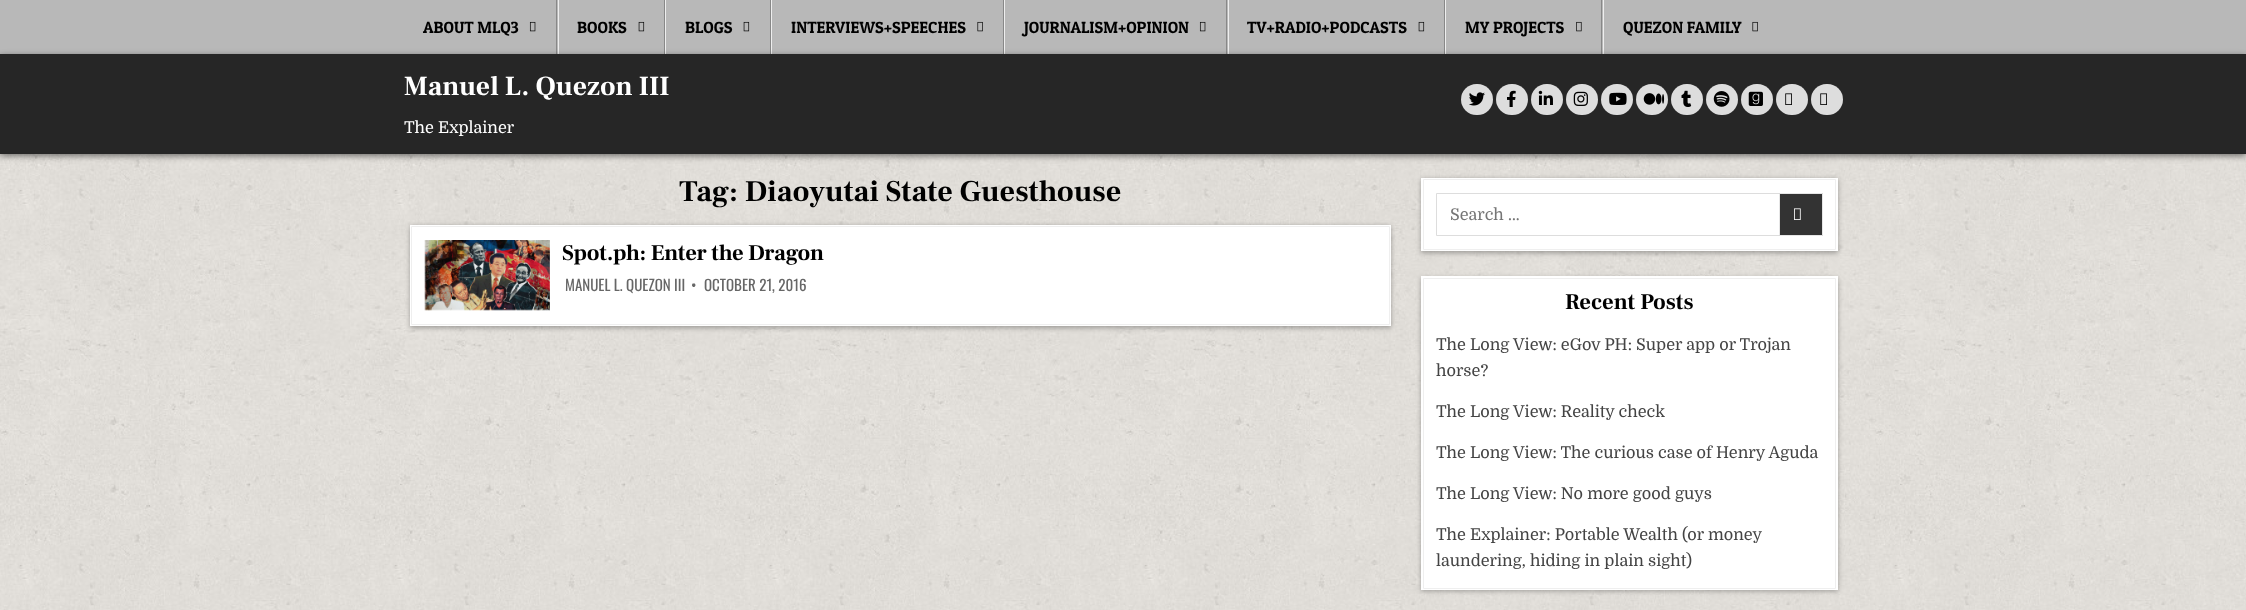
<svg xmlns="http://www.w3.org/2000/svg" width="2246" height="610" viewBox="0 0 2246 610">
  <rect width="100%" height="100%" fill="#fff"/>
  <image x="0" y="154" width="2246" height="456" href="img/1.png"/>
  <path d="M0 0h2246v54H0z" fill="#b8b8b8"/>
  <path d="M556 0h1v54H556z" fill="#888"/>
  <image x="529" y="21" width="7" height="11" href="img/2.png"/>
  <path d="M664 0h1v54H664z" fill="#888"/>
  <path d="M558 0h1v54H558z" fill="#eee"/>
  <image x="638" y="21" width="7" height="11" href="img/3.png"/>
  <path d="M770 0h1v54H770z" fill="#888"/>
  <path d="M665 0h1v54H665z" fill="#eee"/>
  <image x="743" y="21" width="7" height="11" href="img/3.png"/>
  <path d="M1003 0h1v54H1003z" fill="#888"/>
  <path d="M771 0h1v54H771z" fill="#eee"/>
  <image x="977" y="21" width="6" height="11" href="img/4.png"/>
  <path d="M1226 0h1v54H1226z" fill="#888"/>
  <path d="M1004 0h1v54H1004z" fill="#eee"/>
  <image x="1199" y="21" width="7" height="11" href="img/2.png"/>
  <path d="M1444 0h1v54H1444z" fill="#888"/>
  <path d="M1228 0h1v54H1228z" fill="#eee"/>
  <image x="1418" y="21" width="7" height="11" href="img/3.png"/>
  <path d="M1601 0h1v54H1601z" fill="#888"/>
  <path d="M1445 0h1v54H1445z" fill="#eee"/>
  <image x="1576" y="21" width="6" height="11" href="img/5.png"/>
  <path d="M1603 0h1v54H1603z" fill="#eee"/>
  <image x="1752" y="21" width="6" height="11" href="img/4.png"/>
  <path d="M0 56h2246v100H0z" fill="#00000080" filter="blur(3px)"/>
  <path d="M0 54h2246v100H0z" fill="#262626"/>
  <rect x="1461" y="84" width="32" height="31" rx="15.5" fill="#ddd"/>
  <image x="1469" y="92" width="16" height="14" href="img/6.png"/>
  <rect x="1496" y="84" width="32" height="31" rx="15.5" fill="#ddd"/>
  <image x="1507" y="90" width="9" height="17" href="img/7.png"/>
  <rect x="1531" y="84" width="32" height="31" rx="15.5" fill="#ddd"/>
  <image x="1538" y="90" width="15" height="15" href="img/8.png"/>
  <rect x="1566" y="84" width="32" height="31" rx="15.5" fill="#ddd"/>
  <image x="1573" y="91" width="15" height="15" href="img/9.png"/>
  <rect x="1601" y="84" width="32" height="31" rx="15.5" fill="#ddd"/>
  <image x="1609" y="92" width="18" height="13" href="img/10.png"/>
  <rect x="1636" y="84" width="32" height="31" rx="15.5" fill="#ddd"/>
  <image x="1643" y="93" width="22" height="12" href="img/11.png"/>
  <rect x="1671" y="84" width="32" height="31" rx="15.5" fill="#ddd"/>
  <image x="1681" y="90" width="11" height="17" href="img/12.png"/>
  <rect x="1706" y="84" width="32" height="31" rx="15.5" fill="#ddd"/>
  <image x="1713" y="91" width="17" height="16" href="img/13.png"/>
  <rect x="1741" y="84" width="32" height="31" rx="15.5" fill="#ddd"/>
  <image x="1748" y="91" width="15" height="15" href="img/14.png"/>
  <rect x="1776" y="84" width="32" height="31" rx="15.5" fill="#ddd"/>
  <image x="1785" y="93" width="7" height="12" href="img/15.png"/>
  <rect x="1811" y="84" width="32" height="31" rx="15.5" fill="#ddd"/>
  <image x="1820" y="93" width="7" height="12" href="img/15.png"/>
  <path d="M410 226h981v102H410z" fill="#0000004d" filter="blur(2.5px)"/>
  <path d="M410 225h981v101H410z" fill="#fff"/>
  <path d="M411.5 226.5h978v98H411.5z" fill="none" stroke="#efefef"/>
  <image x="424" y="240" width="126" height="71" href="img/16.png"/>
  <path d="M1421 179h417v74H1421z" fill="#0000004d" filter="blur(2.5px)"/>
  <path d="M1421 178h417v73H1421z" fill="#fff"/>
  <path d="M1423.5 179.5h412v70H1423.5z" fill="none" stroke="#efefef"/>
  <path d="M1436.5 193.5h386v42H1436.5z" fill="none" stroke="#ddd"/>
  <path d="M1779.5 193.5h43v42H1779.5z" fill="#333" stroke="#e6e6e6"/>
  <image x="1794" y="208" width="7" height="12" href="img/17.png"/>
  <path d="M1421 278h417v313H1421z" fill="#0000004d" filter="blur(2.5px)"/>
  <path d="M1421 276h417v314H1421z" fill="#fff"/>
  <path d="M1423.5 278.5h412v310H1423.5z" fill="none" stroke="#efefef"/>
  <g font-family="Patua One" font-size="16.25" fill="#000">
    <text x="423" y="33">ABOUT MLQ3</text>
    <text x="577" y="33">BOOKS</text>
    <text x="685" y="33">BLOGS</text>
    <text x="791" y="33">INTERVIEWS+SPEECHES</text>
    <text x="1024" y="33">JOURNALISM+OPINION</text>
    <text x="1247" y="33">TV+RADIO+PODCASTS</text>
    <text x="1465" y="33">MY PROJECTS</text>
    <text x="1623" y="33">QUEZON FAMILY</text>
  </g>
  <text x="404" y="95" font-family="Frank Ruhl Libre" font-size="27.5" font-weight="bold" fill="#fff">Manuel L. Quezon III</text>
  <text x="404" y="133" font-family="Domine" font-size="16.25" fill="#fff">The Explainer</text>
  <text x="679" y="201" font-family="Frank Ruhl Libre" font-size="30" font-weight="bold" fill="#000">Tag: Diaoyutai State Guesthouse</text>
  <text x="562" y="260" font-family="Frank Ruhl Libre" font-size="22.5" font-weight="bold" letter-spacing="-0.25" fill="#000">Spot.ph: Enter the Dragon</text>
  <g font-family="Oswald" font-size="15" fill="#666">
    <text x="565" y="291">MANUEL L. QUEZON III</text>
    <text x="691" y="291">•</text>
    <text x="704" y="291">OCTOBER 21, 2016</text>
  </g>
  <text x="1450" y="220" font-family="Domine" font-size="16.25" fill="#757575">Search …</text>
  <text x="1565" y="309" font-family="Frank Ruhl Libre" font-size="22.5" font-weight="bold" fill="#000">Recent Posts</text>
  <g font-family="Domine" font-size="16.25" fill="#444">
    <text x="1436" y="350">The Long View: eGov PH: Super app or Trojan</text>
    <text x="1436" y="376">horse?</text>
    <text x="1436" y="417">The Long View: Reality check</text>
    <text x="1436" y="458">The Long View: The curious case of Henry Aguda</text>
    <text x="1436" y="499">The Long View: No more good guys</text>
    <text x="1436" y="540">The Explainer: Portable Wealth (or money</text>
    <text x="1436" y="566">laundering, hiding in plain sight)</text>
  </g>
</svg>
